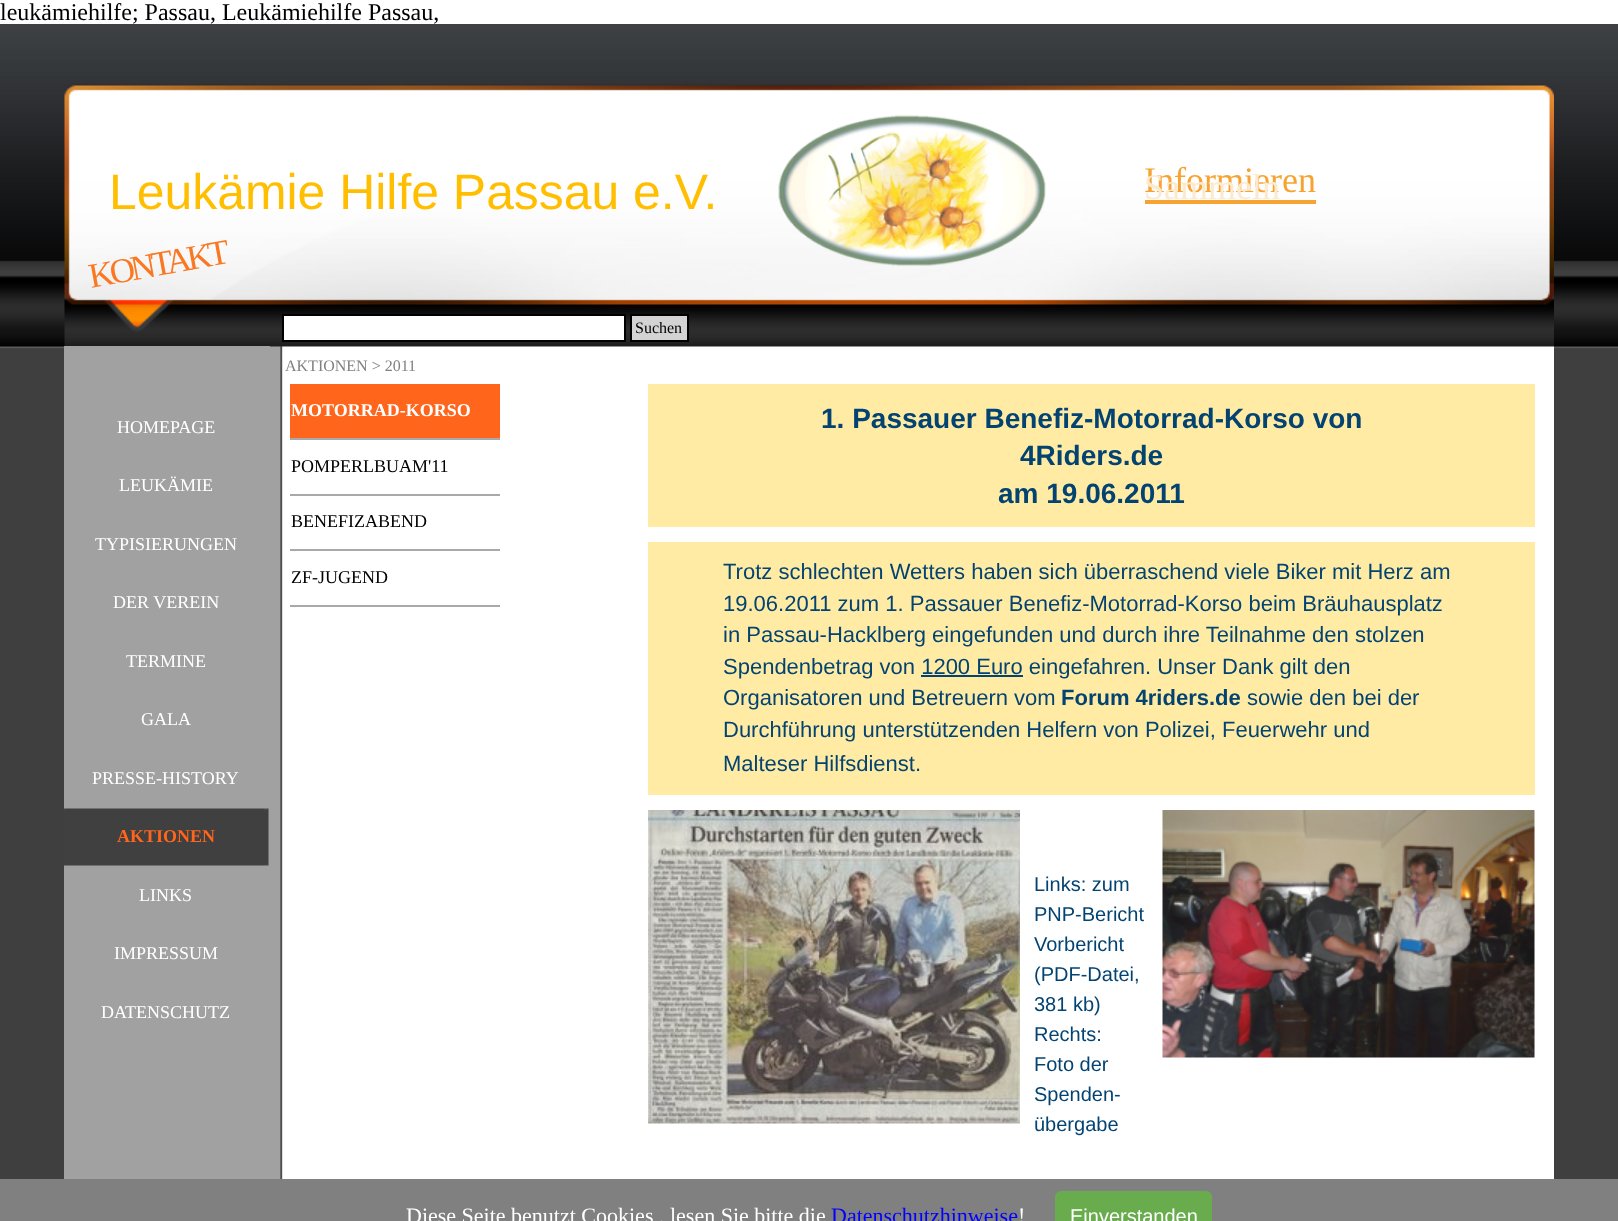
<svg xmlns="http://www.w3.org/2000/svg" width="1618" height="1221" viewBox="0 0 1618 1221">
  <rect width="100%" height="100%" fill="#fff"/>
  <image x="0" y="24" width="1618" height="1155" href="img/1.png"/>
  <image x="64" y="84" width="1490" height="263" href="img/2.png"/>
  <image x="778" y="115" width="268" height="151" href="img/3.png"/>
  <path d="M1145 200h171v4H1145z" fill="#f7a331"/>
  <path d="M283 315h342v26H283z" fill="#fff" stroke="#000" stroke-width="2"/>
  <path d="M631 315h57v26H631z" fill="#d3d3d3" stroke="#000" stroke-width="2"/>
  <image x="270" y="346" width="1284" height="833" href="img/4.png"/>
  <path d="M64 346h206v833H64z" fill="#a1a1a1"/>
  <image x="64" y="808" width="205" height="58" href="img/5.png"/>
  <path d="M290 384h210v54H290z" fill="#ff661c"/>
  <path d="M290 438h210v2H290z" fill="#a9a9a9"/>
  <path d="M290 494h210v2H290z" fill="#a9a9a9"/>
  <path d="M290 549h210v2H290z" fill="#a9a9a9"/>
  <path d="M290 605h210v2H290z" fill="#a9a9a9"/>
  <path d="M648 384h887v143H648z" fill="#ffeba4"/>
  <path d="M648 542h887v253H648z" fill="#ffeba4"/>
  <path d="M921 675h102v2H921z" fill="#034372"/>
  <image x="648" y="810" width="372" height="314" href="img/6.png"/>
  <image x="1162" y="810" width="373" height="248" href="img/7.png"/>
  <path d="M0 1179h1618v42H0z" fill="#808080"/>
  <rect x="1055" y="1191" width="157" height="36" rx="6" fill="#69ac4d"/>
  <text x="0" y="20" font-family="Liberation Serif" font-size="24" fill="#000">leukämiehilfe; Passau, Leukämiehilfe Passau,</text>
  <text x="109" y="209" font-family="Liberation Sans" font-size="49.9" fill="#ffbf00">Leukämie Hilfe Passau e.V.</text>
  <text x="1144" y="192" font-family="Liberation Serif" font-size="36" fill="#f7a331">Informieren</text>
  <text x="1144" y="199" font-family="Liberation Serif" font-size="36" fill="#fce9ce">Sammeln</text>
  <text x="91" y="288" transform="rotate(-10.3 91 288)" font-family="Liberation Serif" font-size="35" letter-spacing="-4" fill="#fa7821">KONTAKT</text>
  <text x="635" y="333" font-family="Liberation Serif" font-size="16" fill="#000">Suchen</text>
  <g font-family="Liberation Serif" font-size="18" fill="#fff">
    <text x="117" y="433">HOMEPAGE</text>
    <text x="119" y="491">LEUKÄMIE</text>
    <text x="95" y="550">TYPISIERUNGEN</text>
    <text x="113" y="608">DER VEREIN</text>
    <text x="126" y="667">TERMINE</text>
    <text x="141" y="725">GALA</text>
    <text x="92" y="784">PRESSE-HISTORY</text>
  </g>
  <text x="117" y="842" font-family="Liberation Serif" font-size="18" font-weight="bold" fill="#ff661c">AKTIONEN</text>
  <g font-family="Liberation Serif" font-size="18" fill="#fff">
    <text x="139" y="901">LINKS</text>
    <text x="114" y="959">IMPRESSUM</text>
    <text x="101" y="1018">DATENSCHUTZ</text>
  </g>
  <text x="285" y="371" font-family="Liberation Serif" font-size="16" fill="#808080">AKTIONEN &gt; 2011</text>
  <text x="291" y="416" font-family="Liberation Serif" font-size="18" font-weight="bold" fill="#fff">MOTORRAD-KORSO</text>
  <g font-family="Liberation Serif" font-size="18" fill="#000">
    <text x="291" y="472">POMPERLBUAM'11</text>
    <text x="291" y="527">BENEFIZABEND</text>
    <text x="291" y="583">ZF-JUGEND</text>
  </g>
  <g font-family="Liberation Sans" font-size="28" font-weight="bold" fill="#034372">
    <text x="821" y="428">1. Passauer Benefiz-Motorrad-Korso von</text>
    <text x="1020" y="465">4Riders.de</text>
    <text x="998" y="503">am 19.06.2011</text>
  </g>
  <g font-family="Liberation Sans" font-size="22" fill="#034372">
    <text x="723" y="579">Trotz schlechten Wetters haben sich überraschend viele Biker mit Herz am</text>
    <text x="723" y="611">19.06.2011 zum 1. Passauer Benefiz-Motorrad-Korso beim Bräuhausplatz</text>
    <text x="723" y="642">in Passau-Hacklberg eingefunden und durch ihre Teilnahme den stolzen</text>
    <text x="723" y="674">Spendenbetrag von 1200 Euro eingefahren. Unser Dank gilt den</text>
    <text x="723" y="705">Organisatoren und Betreuern vom</text>
  </g>
  <text x="1061" y="705" font-family="Liberation Sans" font-size="22" font-weight="bold" fill="#034372">Forum 4riders.de</text>
  <g font-family="Liberation Sans" font-size="22" fill="#034372">
    <text x="1247" y="705">sowie den bei der</text>
    <text x="723" y="737">Durchführung unterstützenden Helfern von Polizei, Feuerwehr und</text>
    <text x="723" y="771">Malteser Hilfsdienst.</text>
  </g>
  <g font-family="Liberation Sans" font-size="20" fill="#034372">
    <text x="1034" y="891">Links: zum</text>
    <text x="1034" y="921">PNP-Bericht</text>
    <text x="1034" y="951">Vorbericht</text>
    <text x="1034" y="981">(PDF-Datei,</text>
    <text x="1034" y="1011">381 kb)</text>
    <text x="1034" y="1041">Rechts:</text>
    <text x="1034" y="1071">Foto der</text>
    <text x="1034" y="1101">Spenden-</text>
    <text x="1034" y="1131">übergabe</text>
  </g>
  <text x="406" y="1223" font-family="Liberation Serif" font-size="22" fill="#fff">Diese Seite benutzt Cookies , lesen Sie bitte die</text>
  <text x="831" y="1223" font-family="Liberation Serif" font-size="22" fill="#00f">Datenschutzhinweise</text>
  <text x="1018" y="1223" font-family="Liberation Serif" font-size="22" fill="#fff">!</text>
  <text x="1070" y="1223" font-family="Liberation Sans" font-size="20" fill="#fff">Einverstanden</text>
</svg>
